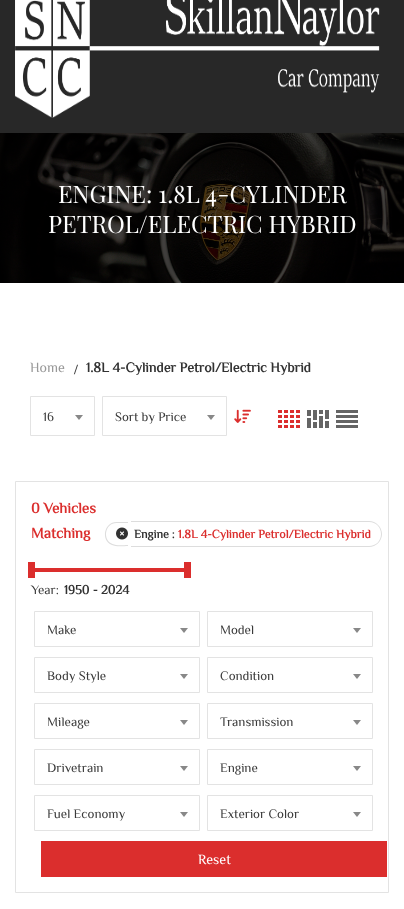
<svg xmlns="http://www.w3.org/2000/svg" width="404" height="909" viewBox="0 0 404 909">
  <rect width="100%" height="100%" fill="#fff"/>
  <path d="M0 0h404v133H0z" fill="#282828"/>
  <image x="15" y="0" width="365" height="118" href="img/1.png"/>
  <image x="0" y="133" width="404" height="150" href="img/2.png"/>
  <path d="M30.5 396.5h64v39H30.5z" fill="none" stroke="#e3e3e3"/>
  <path d="M75 415H83L79 420Z" fill="#888"/>
  <path d="M102.5 396.5h124v39H102.5z" fill="none" stroke="#e3e3e3"/>
  <path d="M207 415H215L211 420Z" fill="#888"/>
  <image x="234" y="409" width="17" height="14" href="img/3.png"/>
  <path d="M278 410h22v18H278z" fill="#db2e2d"/>
  <image x="278" y="410" width="22" height="18" href="img/4.png"/>
  <path d="M307 410h22v18H307z" fill="#656565"/>
  <image x="307" y="410" width="22" height="18" href="img/5.png"/>
  <path d="M336 410h22v18H336z" fill="#656565"/>
  <image x="336" y="413" width="22" height="12" href="img/6.png"/>
  <path d="M15.5 481.5h373v411H15.5z" fill="none" stroke="#e3e3e3"/>
  <path d="M116.5 522H128V546C123.5 546 116 547 112 545C100.5 540.5 104 522 116.5 522ZM116.5 523H128V545C123.5 545 116.5 546 112.5 544C102 540 105 523 116.5 523Z" fill="#ddd" fill-rule="evenodd"/>
  <path d="M131 521h47v1H131z" fill="#ddd"/>
  <path d="M131 546h47v1H131z" fill="#ddd"/>
  <path d="M178 521H369C376 521 382 527 382 534C382 541 376 547 369 547H178ZM178 522H369C376 522 381 527 381 534C381 541 376 546 369 546H178Z" fill="#ddd" fill-rule="evenodd"/>
  <image x="116" y="527" width="12" height="13" href="img/7.png"/>
  <path d="M31 568h156v4H31z" fill="#db2e2d"/>
  <path d="M28 562h7v16H28z" fill="#db2e2d"/>
  <path d="M184 562h7v16H184z" fill="#db2e2d"/>
  <path d="M34.5 611.5h165v35H34.5z" fill="none" stroke="#e3e3e3"/>
  <path d="M180 628H188L184 633Z" fill="#888"/>
  <path d="M207.5 611.5h165v35H207.5z" fill="none" stroke="#e3e3e3"/>
  <path d="M353 628H361L357 633Z" fill="#888"/>
  <path d="M34.5 657.5h165v35H34.5z" fill="none" stroke="#e3e3e3"/>
  <path d="M180 674H188L184 679Z" fill="#888"/>
  <path d="M207.5 657.5h165v35H207.5z" fill="none" stroke="#e3e3e3"/>
  <path d="M353 674H361L357 679Z" fill="#888"/>
  <path d="M34.5 703.5h165v35H34.5z" fill="none" stroke="#e3e3e3"/>
  <path d="M180 720H188L184 725Z" fill="#888"/>
  <path d="M207.5 703.5h165v35H207.5z" fill="none" stroke="#e3e3e3"/>
  <path d="M353 720H361L357 725Z" fill="#888"/>
  <path d="M34.5 749.5h165v35H34.5z" fill="none" stroke="#e3e3e3"/>
  <path d="M180 766H188L184 771Z" fill="#888"/>
  <path d="M207.5 749.5h165v35H207.5z" fill="none" stroke="#e3e3e3"/>
  <path d="M353 766H361L357 771Z" fill="#888"/>
  <path d="M34.5 795.5h165v35H34.5z" fill="none" stroke="#e3e3e3"/>
  <path d="M180 812H188L184 817Z" fill="#888"/>
  <path d="M207.5 795.5h165v35H207.5z" fill="none" stroke="#e3e3e3"/>
  <path d="M353 812H361L357 817Z" fill="#888"/>
  <path d="M41 841h346v36H41z" fill="#db2e2d"/>
  <g font-family="Playfair Display SC" font-size="24" fill="#fff">
    <text x="58" y="203">ENGINE: 1.8L 4-CYLINDER</text>
    <text x="48" y="233">PETROL/ELECTRIC HYBRID</text>
  </g>
  <text x="30" y="372" font-family="Philosopher" font-size="14" fill="#999">Home</text>
  <text x="74" y="374" font-family="Liberation Serif" font-size="14" font-weight="bold" fill="#3a3a3a">/</text>
  <text x="86" y="372" font-family="Philosopher" font-size="14" font-weight="bold" fill="#323232">1.8L 4-Cylinder Petrol/Electric Hybrid</text>
  <g font-family="Philosopher" font-size="13" fill="#3a3a3a">
    <text x="43" y="421">16</text>
    <text x="115" y="421">Sort by Price</text>
  </g>
  <g font-family="Philosopher" font-size="15" font-weight="bold" fill="#db2e2d">
    <text x="31" y="513">0 Vehicles</text>
    <text x="31" y="538">Matching</text>
  </g>
  <text x="134" y="538" font-family="Philosopher" font-size="12" font-weight="bold" fill="#323232">Engine :</text>
  <text x="178" y="538" font-family="Philosopher" font-size="12" font-weight="bold" fill="#db2e2d">1.8L 4-Cylinder Petrol/Electric Hybrid</text>
  <text x="31" y="594" font-family="Philosopher" font-size="13" fill="#3a3a3a">Year:</text>
  <text x="64" y="594" font-family="Philosopher" font-size="13" font-weight="bold" fill="#323232">1950 - 2024</text>
  <g font-family="Philosopher" font-size="13" fill="#3a3a3a">
    <text x="47" y="634">Make</text>
    <text x="220" y="634">Model</text>
    <text x="47" y="680">Body Style</text>
    <text x="220" y="680">Condition</text>
    <text x="47" y="726">Mileage</text>
    <text x="220" y="726">Transmission</text>
    <text x="47" y="772">Drivetrain</text>
    <text x="220" y="772">Engine</text>
    <text x="47" y="818">Fuel Economy</text>
    <text x="220" y="818">Exterior Color</text>
  </g>
  <text x="198" y="864" font-family="Philosopher" font-size="14" fill="#fff">Reset</text>
</svg>
